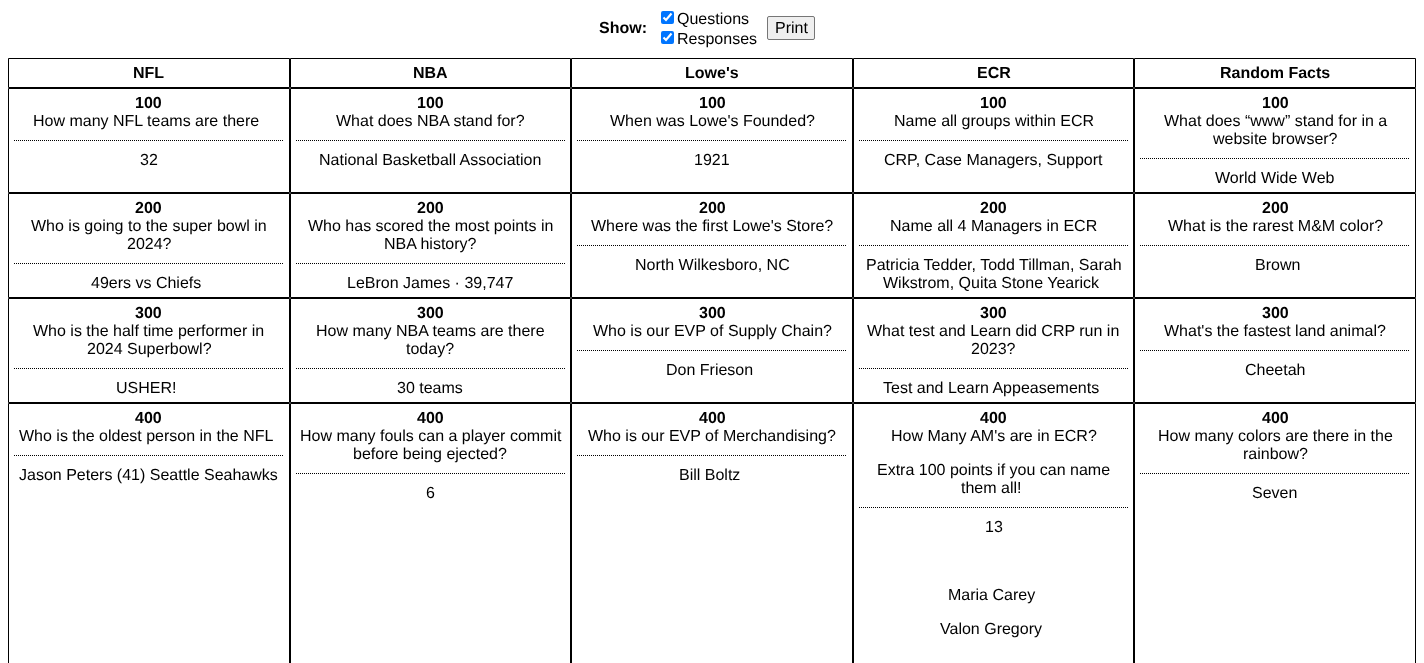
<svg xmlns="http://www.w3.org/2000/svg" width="1424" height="663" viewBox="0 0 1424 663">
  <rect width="100%" height="100%" fill="#fff"/>
  <rect x="661" y="11" width="13" height="13" rx="2" fill="#0075ff"/>
  <path d="M663.5 17.5L666 20L671.5 13.5" fill="none" stroke="#fff" stroke-width="2.1"/>
  <rect x="661" y="31" width="13" height="13" rx="2" fill="#0075ff"/>
  <path d="M663.5 37.5L666 40L671.5 33.5" fill="none" stroke="#fff" stroke-width="2.1"/>
  <rect x="767.5" y="16.5" width="47" height="23" rx="1.5" fill="#efefef" stroke="#767676"/>
  <path d="M8.5 58.5h281v29H8.5z" fill="none" stroke="#000"/>
  <path d="M290.5 58.5h280v29H290.5z" fill="none" stroke="#000"/>
  <path d="M571.5 58.5h281v29H571.5z" fill="none" stroke="#000"/>
  <path d="M853.5 58.5h280v29H853.5z" fill="none" stroke="#000"/>
  <path d="M1134.5 58.5h281v29H1134.5z" fill="none" stroke="#000"/>
  <path d="M8.5 88.5h281v104H8.5z" fill="none" stroke="#000"/>
  <path d="M14 140.5H284" fill="none" stroke="#000" stroke-dasharray="1 1"/>
  <path d="M290.5 88.5h280v104H290.5z" fill="none" stroke="#000"/>
  <path d="M296 140.5H565" fill="none" stroke="#000" stroke-dasharray="1 1"/>
  <path d="M571.5 88.5h281v104H571.5z" fill="none" stroke="#000"/>
  <path d="M577 140.5H847" fill="none" stroke="#000" stroke-dasharray="1 1"/>
  <path d="M853.5 88.5h280v104H853.5z" fill="none" stroke="#000"/>
  <path d="M859 140.5H1128" fill="none" stroke="#000" stroke-dasharray="1 1"/>
  <path d="M1134.5 88.5h281v104H1134.5z" fill="none" stroke="#000"/>
  <path d="M1140 158.5H1410" fill="none" stroke="#000" stroke-dasharray="1 1"/>
  <path d="M8.5 193.5h281v104H8.5z" fill="none" stroke="#000"/>
  <path d="M14 263.5H284" fill="none" stroke="#000" stroke-dasharray="1 1"/>
  <path d="M290.5 193.5h280v104H290.5z" fill="none" stroke="#000"/>
  <path d="M296 263.5H565" fill="none" stroke="#000" stroke-dasharray="1 1"/>
  <path d="M571.5 193.5h281v104H571.5z" fill="none" stroke="#000"/>
  <path d="M577 245.5H847" fill="none" stroke="#000" stroke-dasharray="1 1"/>
  <path d="M853.5 193.5h280v104H853.5z" fill="none" stroke="#000"/>
  <path d="M859 245.5H1128" fill="none" stroke="#000" stroke-dasharray="1 1"/>
  <path d="M1134.5 193.5h281v104H1134.5z" fill="none" stroke="#000"/>
  <path d="M1140 245.5H1410" fill="none" stroke="#000" stroke-dasharray="1 1"/>
  <path d="M8.5 298.5h281v104H8.5z" fill="none" stroke="#000"/>
  <path d="M14 368.5H284" fill="none" stroke="#000" stroke-dasharray="1 1"/>
  <path d="M290.5 298.5h280v104H290.5z" fill="none" stroke="#000"/>
  <path d="M296 368.5H565" fill="none" stroke="#000" stroke-dasharray="1 1"/>
  <path d="M571.5 298.5h281v104H571.5z" fill="none" stroke="#000"/>
  <path d="M577 350.5H847" fill="none" stroke="#000" stroke-dasharray="1 1"/>
  <path d="M853.5 298.5h280v104H853.5z" fill="none" stroke="#000"/>
  <path d="M859 368.5H1128" fill="none" stroke="#000" stroke-dasharray="1 1"/>
  <path d="M1134.5 298.5h281v104H1134.5z" fill="none" stroke="#000"/>
  <path d="M1140 350.5H1410" fill="none" stroke="#000" stroke-dasharray="1 1"/>
  <path d="M8.5 403.5h281v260H8.5z" fill="none" stroke="#000"/>
  <path d="M14 455.5H284" fill="none" stroke="#000" stroke-dasharray="1 1"/>
  <path d="M290.5 403.5h280v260H290.5z" fill="none" stroke="#000"/>
  <path d="M296 473.5H565" fill="none" stroke="#000" stroke-dasharray="1 1"/>
  <path d="M571.5 403.5h281v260H571.5z" fill="none" stroke="#000"/>
  <path d="M577 455.5H847" fill="none" stroke="#000" stroke-dasharray="1 1"/>
  <path d="M853.5 403.5h280v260H853.5z" fill="none" stroke="#000"/>
  <path d="M859 507.5H1128" fill="none" stroke="#000" stroke-dasharray="1 1"/>
  <path d="M1134.5 403.5h281v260H1134.5z" fill="none" stroke="#000"/>
  <path d="M1140 473.5H1410" fill="none" stroke="#000" stroke-dasharray="1 1"/>
  <text x="599" y="33" font-family="Liberation Sans" font-size="16" font-weight="bold" fill="#000">Show:</text>
  <g font-family="Liberation Sans" font-size="16" fill="#000">
    <text x="677" y="24">Questions</text>
    <text x="677" y="44">Responses</text>
    <text x="775" y="33">Print</text>
  </g>
  <g font-family="Liberation Sans" font-size="16" font-weight="bold" fill="#000">
    <text x="133" y="78">NFL</text>
    <text x="413" y="78">NBA</text>
    <text x="685" y="78">Lowe's</text>
    <text x="977" y="78">ECR</text>
    <text x="1220" y="78">Random Facts</text>
    <text x="135" y="108">100</text>
  </g>
  <g font-family="Liberation Sans" font-size="16" fill="#000">
    <text x="33" y="126">How many NFL teams are there</text>
    <text x="140" y="165">32</text>
  </g>
  <text x="417" y="108" font-family="Liberation Sans" font-size="16" font-weight="bold" fill="#000">100</text>
  <g font-family="Liberation Sans" font-size="16" fill="#000">
    <text x="336" y="126">What does NBA stand for?</text>
    <text x="319" y="165">National Basketball Association</text>
  </g>
  <text x="699" y="108" font-family="Liberation Sans" font-size="16" font-weight="bold" fill="#000">100</text>
  <g font-family="Liberation Sans" font-size="16" fill="#000">
    <text x="610" y="126">When was Lowe's Founded?</text>
    <text x="694" y="165">1921</text>
  </g>
  <text x="980" y="108" font-family="Liberation Sans" font-size="16" font-weight="bold" fill="#000">100</text>
  <g font-family="Liberation Sans" font-size="16" fill="#000">
    <text x="894" y="126">Name all groups within ECR</text>
    <text x="884" y="165">CRP, Case Managers, Support</text>
  </g>
  <text x="1262" y="108" font-family="Liberation Sans" font-size="16" font-weight="bold" fill="#000">100</text>
  <g font-family="Liberation Sans" font-size="16" fill="#000">
    <text x="1164" y="126">What does “www” stand for in a</text>
    <text x="1213" y="144">website browser?</text>
    <text x="1215" y="183">World Wide Web</text>
  </g>
  <text x="135" y="213" font-family="Liberation Sans" font-size="16" font-weight="bold" fill="#000">200</text>
  <g font-family="Liberation Sans" font-size="16" fill="#000">
    <text x="31" y="231">Who is going to the super bowl in</text>
    <text x="127" y="249">2024?</text>
    <text x="91" y="288">49ers vs Chiefs</text>
  </g>
  <text x="417" y="213" font-family="Liberation Sans" font-size="16" font-weight="bold" fill="#000">200</text>
  <g font-family="Liberation Sans" font-size="16" fill="#000">
    <text x="308" y="231">Who has scored the most points in</text>
    <text x="384" y="249">NBA history?</text>
    <text x="347" y="288">LeBron James · 39,747</text>
  </g>
  <text x="699" y="213" font-family="Liberation Sans" font-size="16" font-weight="bold" fill="#000">200</text>
  <g font-family="Liberation Sans" font-size="16" fill="#000">
    <text x="591" y="231">Where was the first Lowe's Store?</text>
    <text x="635" y="270">North Wilkesboro, NC</text>
  </g>
  <text x="980" y="213" font-family="Liberation Sans" font-size="16" font-weight="bold" fill="#000">200</text>
  <g font-family="Liberation Sans" font-size="16" fill="#000">
    <text x="890" y="231">Name all 4 Managers in ECR</text>
    <text x="866" y="270">Patricia Tedder, Todd Tillman, Sarah</text>
    <text x="883" y="288">Wikstrom, Quita Stone Yearick</text>
  </g>
  <text x="1262" y="213" font-family="Liberation Sans" font-size="16" font-weight="bold" fill="#000">200</text>
  <g font-family="Liberation Sans" font-size="16" fill="#000">
    <text x="1168" y="231">What is the rarest M&amp;M color?</text>
    <text x="1255" y="270">Brown</text>
  </g>
  <text x="135" y="318" font-family="Liberation Sans" font-size="16" font-weight="bold" fill="#000">300</text>
  <g font-family="Liberation Sans" font-size="16" fill="#000">
    <text x="33" y="336">Who is the half time performer in</text>
    <text x="87" y="354">2024 Superbowl?</text>
    <text x="116" y="393">USHER!</text>
  </g>
  <text x="417" y="318" font-family="Liberation Sans" font-size="16" font-weight="bold" fill="#000">300</text>
  <g font-family="Liberation Sans" font-size="16" fill="#000">
    <text x="316" y="336">How many NBA teams are there</text>
    <text x="406" y="354">today?</text>
    <text x="397" y="393">30 teams</text>
  </g>
  <text x="699" y="318" font-family="Liberation Sans" font-size="16" font-weight="bold" fill="#000">300</text>
  <g font-family="Liberation Sans" font-size="16" fill="#000">
    <text x="593" y="336">Who is our EVP of Supply Chain?</text>
    <text x="666" y="375">Don Frieson</text>
  </g>
  <text x="980" y="318" font-family="Liberation Sans" font-size="16" font-weight="bold" fill="#000">300</text>
  <g font-family="Liberation Sans" font-size="16" fill="#000">
    <text x="867" y="336">What test and Learn did CRP run in</text>
    <text x="971" y="354">2023?</text>
    <text x="883" y="393">Test and Learn Appeasements</text>
  </g>
  <text x="1262" y="318" font-family="Liberation Sans" font-size="16" font-weight="bold" fill="#000">300</text>
  <g font-family="Liberation Sans" font-size="16" fill="#000">
    <text x="1164" y="336">What's the fastest land animal?</text>
    <text x="1245" y="375">Cheetah</text>
  </g>
  <text x="135" y="423" font-family="Liberation Sans" font-size="16" font-weight="bold" fill="#000">400</text>
  <g font-family="Liberation Sans" font-size="16" fill="#000">
    <text x="19" y="441">Who is the oldest person in the NFL</text>
    <text x="19" y="480">Jason Peters (41) Seattle Seahawks</text>
  </g>
  <text x="417" y="423" font-family="Liberation Sans" font-size="16" font-weight="bold" fill="#000">400</text>
  <g font-family="Liberation Sans" font-size="16" fill="#000">
    <text x="300" y="441">How many fouls can a player commit</text>
    <text x="353" y="459">before being ejected?</text>
    <text x="426" y="498">6</text>
  </g>
  <text x="699" y="423" font-family="Liberation Sans" font-size="16" font-weight="bold" fill="#000">400</text>
  <g font-family="Liberation Sans" font-size="16" fill="#000">
    <text x="588" y="441">Who is our EVP of Merchandising?</text>
    <text x="679" y="480">Bill Boltz</text>
  </g>
  <text x="980" y="423" font-family="Liberation Sans" font-size="16" font-weight="bold" fill="#000">400</text>
  <g font-family="Liberation Sans" font-size="16" fill="#000">
    <text x="891" y="441">How Many AM's are in ECR?</text>
    <text x="877" y="475">Extra 100 points if you can name</text>
    <text x="961" y="493">them all!</text>
    <text x="985" y="532">13</text>
    <text x="948" y="600">Maria Carey</text>
    <text x="940" y="634">Valon Gregory</text>
  </g>
  <text x="1262" y="423" font-family="Liberation Sans" font-size="16" font-weight="bold" fill="#000">400</text>
  <g font-family="Liberation Sans" font-size="16" fill="#000">
    <text x="1158" y="441">How many colors are there in the</text>
    <text x="1243" y="459">rainbow?</text>
    <text x="1252" y="498">Seven</text>
  </g>
</svg>
